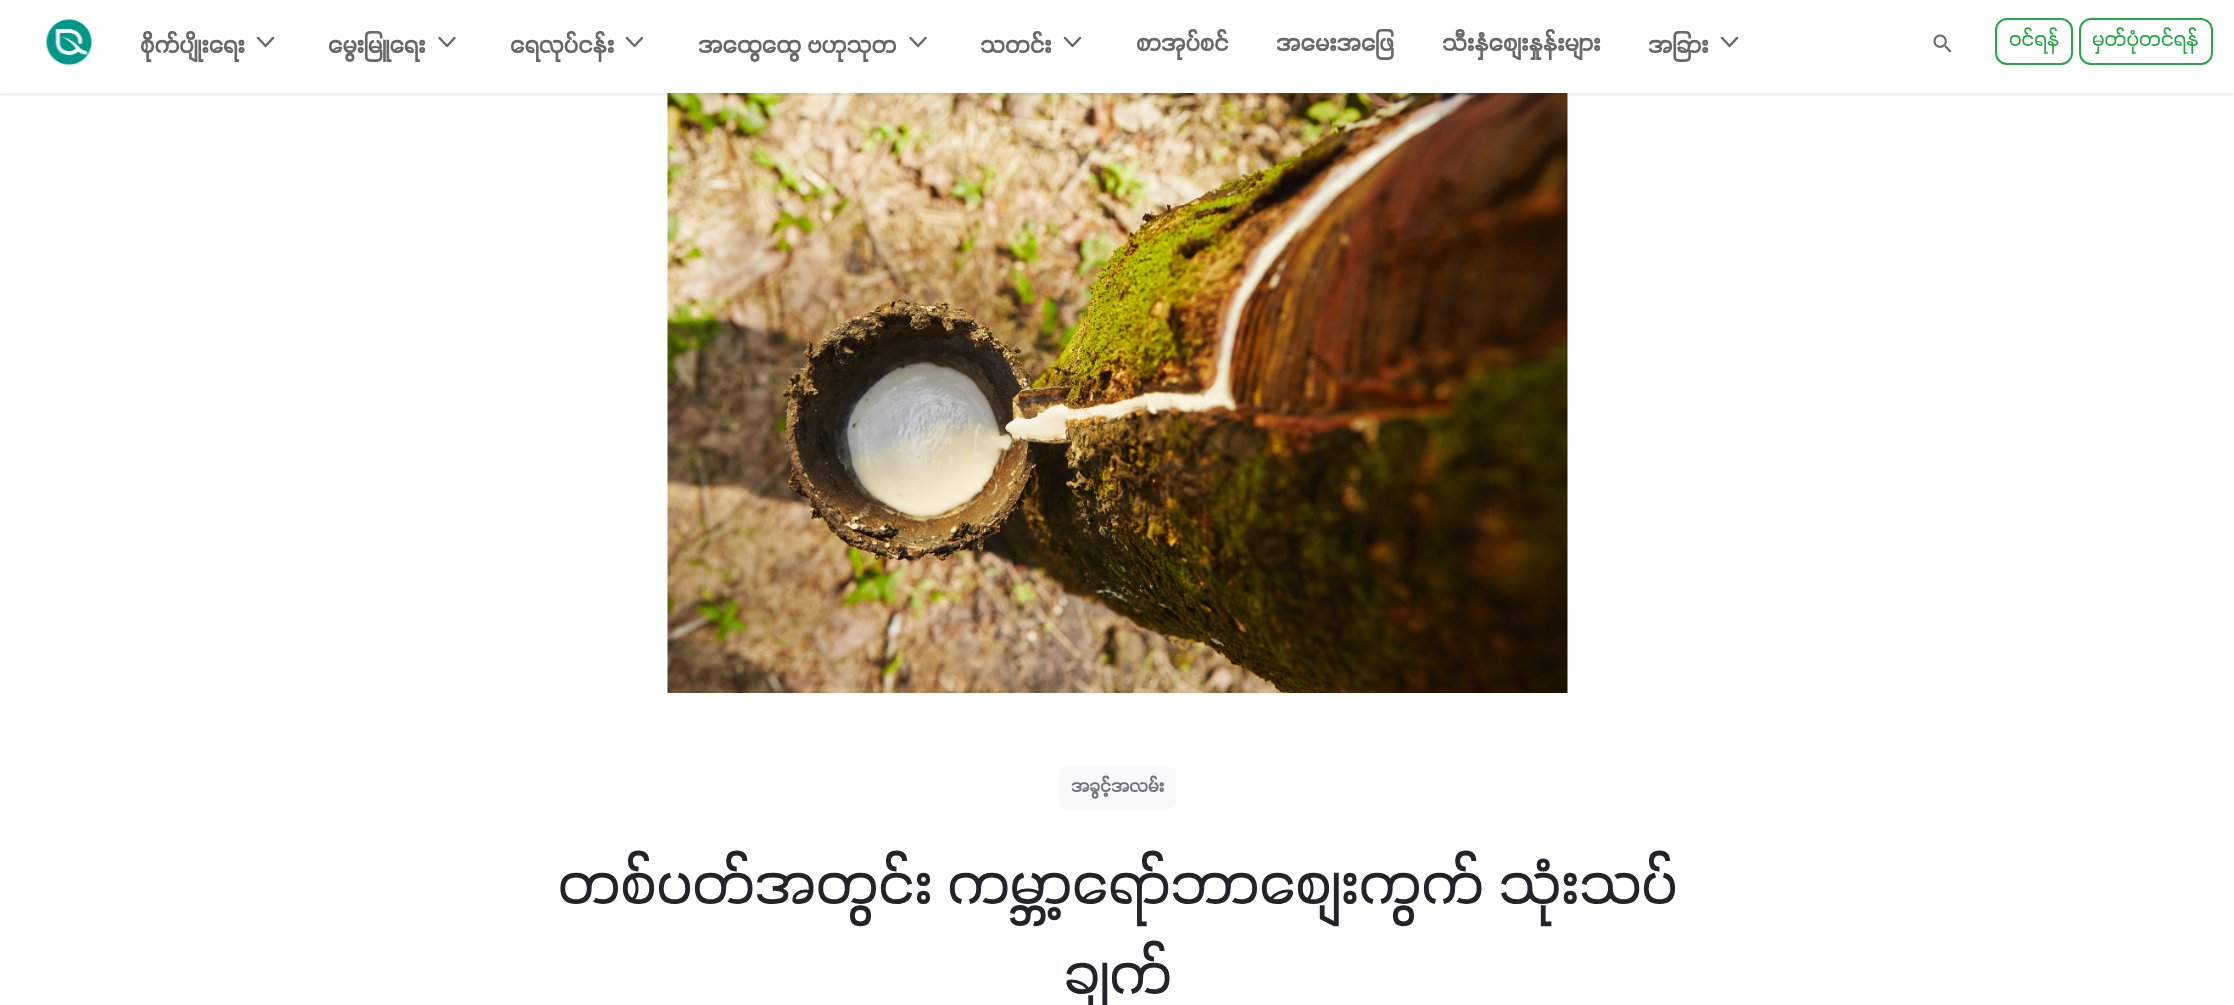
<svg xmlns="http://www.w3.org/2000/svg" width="2234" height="1005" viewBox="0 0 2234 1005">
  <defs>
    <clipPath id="clip1"><path d="M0 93h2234v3H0z"/></clipPath>
  </defs>
  <rect width="100%" height="100%" fill="#fff"/>
  <image x="667" y="93" width="901" height="600" href="img/3.png"/>
  <g clip-path="url(#clip1)">
    <path d="M-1 3h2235v93H-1z" fill="#0000000d" filter="blur(1.5px)"/>
  </g>
  <image x="46" y="19" width="46" height="46" href="img/1.png"/>
  <path d="M258 38L265.5 46L273 38" fill="none" stroke="#686868" stroke-width="2.5" stroke-linecap="round" stroke-linejoin="round"/>
  <path d="M439.5 38L447 46L454.5 38" fill="none" stroke="#686868" stroke-width="2.5" stroke-linecap="round" stroke-linejoin="round"/>
  <path d="M627 38L634.5 46L642 38" fill="none" stroke="#686868" stroke-width="2.5" stroke-linecap="round" stroke-linejoin="round"/>
  <path d="M910.5 38L918 46L925.5 38" fill="none" stroke="#686868" stroke-width="2.5" stroke-linecap="round" stroke-linejoin="round"/>
  <path d="M1065 38L1072.5 46L1080 38" fill="none" stroke="#686868" stroke-width="2.5" stroke-linecap="round" stroke-linejoin="round"/>
  <path d="M1722 38L1729.5 46L1737 38" fill="none" stroke="#686868" stroke-width="2.5" stroke-linecap="round" stroke-linejoin="round"/>
  <image x="1933" y="34" width="19" height="19" href="img/2.png"/>
  <rect x="1996" y="19" width="76" height="45" rx="11" fill="none" stroke="#28a745" stroke-width="2"/>
  <rect x="2080" y="19" width="132" height="45" rx="11" fill="none" stroke="#28a745" stroke-width="2"/>
  <rect x="1059" y="767" width="117" height="42" rx="6" fill="#f8f9fa"/>
  <g font-family="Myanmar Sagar" font-size="24" font-weight="bold" fill="#686868">
    <text x="140" y="53">စိုက်ပျိုးရေး</text>
    <text x="328" y="53">မွေးမြူရေး</text>
    <text x="510" y="53">ရေလုပ်ငန်း</text>
    <text x="698" y="53">အထွေထွေ ဗဟုသုတ</text>
    <text x="980" y="53">သတင်း</text>
    <text x="1136" y="51">စာအုပ်စင်</text>
    <text x="1276" y="51">အမေးအဖြေ</text>
    <text x="1442" y="51">သီးနှံစျေးနှုန်းများ</text>
    <text x="1648" y="53">အခြား</text>
  </g>
  <g font-family="Myanmar Sagar" font-size="21" fill="#28a745">
    <text x="2009" y="46">ဝင်ရန်</text>
    <text x="2092" y="46">မှတ်ပုံတင်ရန်</text>
  </g>
  <text x="1071" y="792" font-family="Myanmar Sagar" font-size="18" font-weight="bold" fill="#6c757d">အခွင့်အလမ်း</text>
  <g font-family="Myanmar Sagar" font-size="60" fill="#212529">
    <text x="558" y="904">တစ်ပတ်အတွင်း ကမ္ဘာ့ရော်ဘာစျေးကွက် သုံးသပ်</text>
    <text x="1064" y="994">ချက်</text>
  </g>
</svg>
